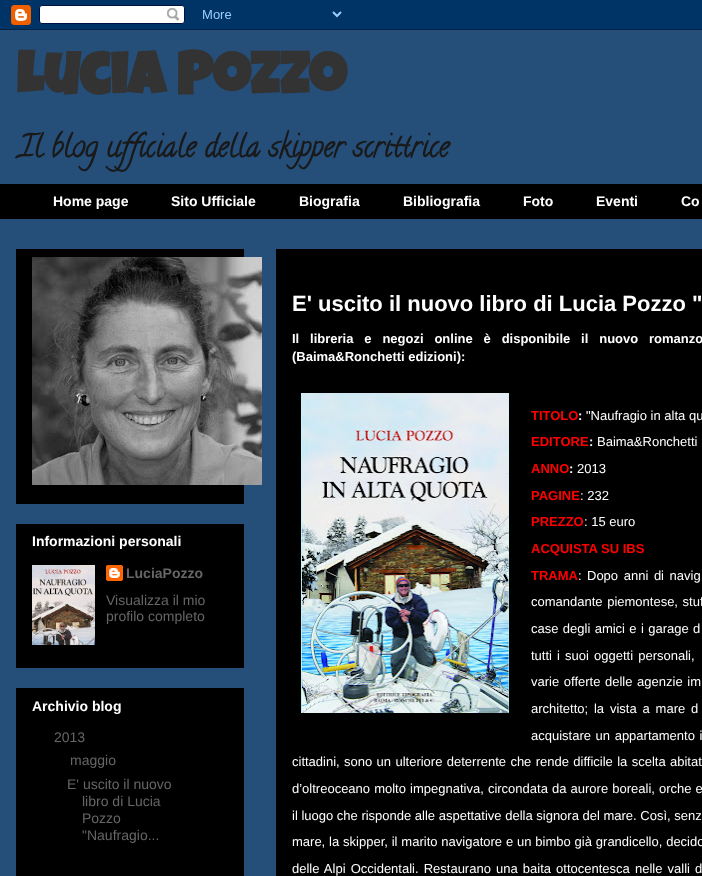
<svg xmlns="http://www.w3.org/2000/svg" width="702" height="876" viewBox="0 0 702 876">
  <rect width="100%" height="100%" fill="#254e79"/>
  <image x="0" y="0" width="702" height="30" href="img/1.png"/>
  <path d="M0 184h702v35H0z" fill="#000"/>
  <path d="M16 249h228v255H16z" fill="#000"/>
  <image x="32" y="257" width="230" height="228" href="img/2.png"/>
  <path d="M16 524h228v144H16z" fill="#000"/>
  <image x="32" y="565" width="63" height="80" href="img/3.png"/>
  <image x="106" y="565" width="17" height="16" href="img/4.png"/>
  <path d="M16 688h228v188H16z" fill="#000"/>
  <path d="M276 249h426v627H276z" fill="#000"/>
  <image x="301" y="393" width="208" height="320" href="img/5.png"/>
  <text x="16" y="94" font-family="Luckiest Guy" font-size="60" font-weight="bold" fill="#333">Lucia Pozzo</text>
  <text x="18" y="156" font-family="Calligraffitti" font-size="30" font-weight="bold" fill="#191919">Il blog ufficiale della skipper scrittrice</text>
  <g font-family="Liberation Sans" font-size="14" font-weight="bold" fill="#fff">
    <text x="53" y="206">Home page</text>
    <text x="171" y="206">Sito Ufficiale</text>
    <text x="299" y="206">Biografia</text>
    <text x="403" y="206">Bibliografia</text>
    <text x="523" y="206">Foto</text>
    <text x="596" y="206">Eventi</text>
    <text x="681" y="206">Co</text>
    <text x="32" y="546">Informazioni personali</text>
  </g>
  <text x="126" y="578" font-family="Liberation Sans" font-size="14" font-weight="bold" fill="#666">LuciaPozzo</text>
  <g font-family="Liberation Sans" font-size="14" fill="#666">
    <text x="106" y="605">Visualizza il mio</text>
    <text x="106" y="621">profilo completo</text>
  </g>
  <text x="32" y="711" font-family="Liberation Sans" font-size="14" font-weight="bold" fill="#fff">Archivio blog</text>
  <g font-family="Liberation Sans" font-size="14" fill="#666">
    <text x="54" y="742">2013</text>
    <text x="70" y="765">maggio</text>
    <text x="67" y="789">E' uscito il nuovo</text>
    <text x="82" y="806">libro di Lucia</text>
    <text x="82" y="823">Pozzo</text>
    <text x="82" y="840">"Naufragio...</text>
  </g>
  <text x="292" y="311" font-family="Liberation Sans" font-size="22" font-weight="bold" fill="#fff">E' uscito il nuovo libro di Lucia Pozzo "</text>
  <g font-family="Liberation Sans" font-size="13" font-weight="bold" fill="#fff">
    <text x="292" y="343" word-spacing="7.25">Il libreria e negozi online è disponibile il nuovo romanzo</text>
    <text x="292" y="361">(Baima&amp;Ronchetti edizioni):</text>
  </g>
  <text x="531" y="420" font-family="Liberation Sans" font-size="13" font-weight="bold" fill="#f00">TITOLO</text>
  <text x="578" y="420" font-family="Liberation Sans" font-size="13" font-weight="bold" fill="#fff">:</text>
  <text x="586" y="420" font-family="Liberation Sans" font-size="13" fill="#fff">"Naufragio in alta qu</text>
  <text x="531" y="446" font-family="Liberation Sans" font-size="13" font-weight="bold" fill="#f00">EDITORE</text>
  <text x="589" y="446" font-family="Liberation Sans" font-size="13" font-weight="bold" fill="#fff">:</text>
  <text x="597" y="446" font-family="Liberation Sans" font-size="13" fill="#fff">Baima&amp;Ronchetti</text>
  <text x="531" y="473" font-family="Liberation Sans" font-size="13" font-weight="bold" fill="#f00">ANNO</text>
  <text x="569" y="473" font-family="Liberation Sans" font-size="13" font-weight="bold" fill="#fff">:</text>
  <text x="577" y="473" font-family="Liberation Sans" font-size="13" fill="#fff">2013</text>
  <text x="531" y="500" font-family="Liberation Sans" font-size="13" font-weight="bold" fill="#f00">PAGINE</text>
  <text x="580" y="500" font-family="Liberation Sans" font-size="13" fill="#fff">: 232</text>
  <text x="531" y="526" font-family="Liberation Sans" font-size="13" font-weight="bold" fill="#f00">PREZZO</text>
  <text x="584" y="526" font-family="Liberation Sans" font-size="13" fill="#fff">: 15 euro</text>
  <g font-family="Liberation Sans" font-size="13" font-weight="bold" fill="#f00">
    <text x="531" y="553">ACQUISTA SU IBS</text>
    <text x="531" y="580">TRAMA</text>
  </g>
  <g font-family="Liberation Sans" font-size="13" fill="#fff">
    <text x="578" y="580">:</text>
    <text x="587" y="580" word-spacing="2">Dopo anni di navig</text>
    <text x="531" y="606" word-spacing="1">comandante piemontese, stuf</text>
    <text x="531" y="633" word-spacing="0.75">case degli amici e i garage d</text>
    <text x="531" y="660" word-spacing="1.5">tutti i suoi oggetti personali,</text>
    <text x="531" y="686" word-spacing="1">varie offerte delle agenzie im</text>
    <text x="531" y="713" word-spacing="2.25">architetto; la vista a mare d</text>
    <text x="531" y="740" word-spacing="1">acquistare un appartamento i</text>
    <text x="292" y="766" word-spacing="0.75">cittadini, sono un ulteriore deterrente che rende difficile la scelta abitat</text>
    <text x="292" y="793" word-spacing="0.5">d’oltreoceano molto impegnativa, circondata da aurore boreali, orche e</text>
    <text x="292" y="820">il luogo che risponde alle aspettative della signora del mare. Così, senz</text>
    <text x="292" y="846" word-spacing="0.25">mare, la skipper, il marito navigatore e un bimbo già grandicello, decido</text>
    <text x="292" y="873" word-spacing="1.5">delle Alpi Occidentali. Restaurano una baita ottocentesca nelle valli d</text>
  </g>
</svg>
